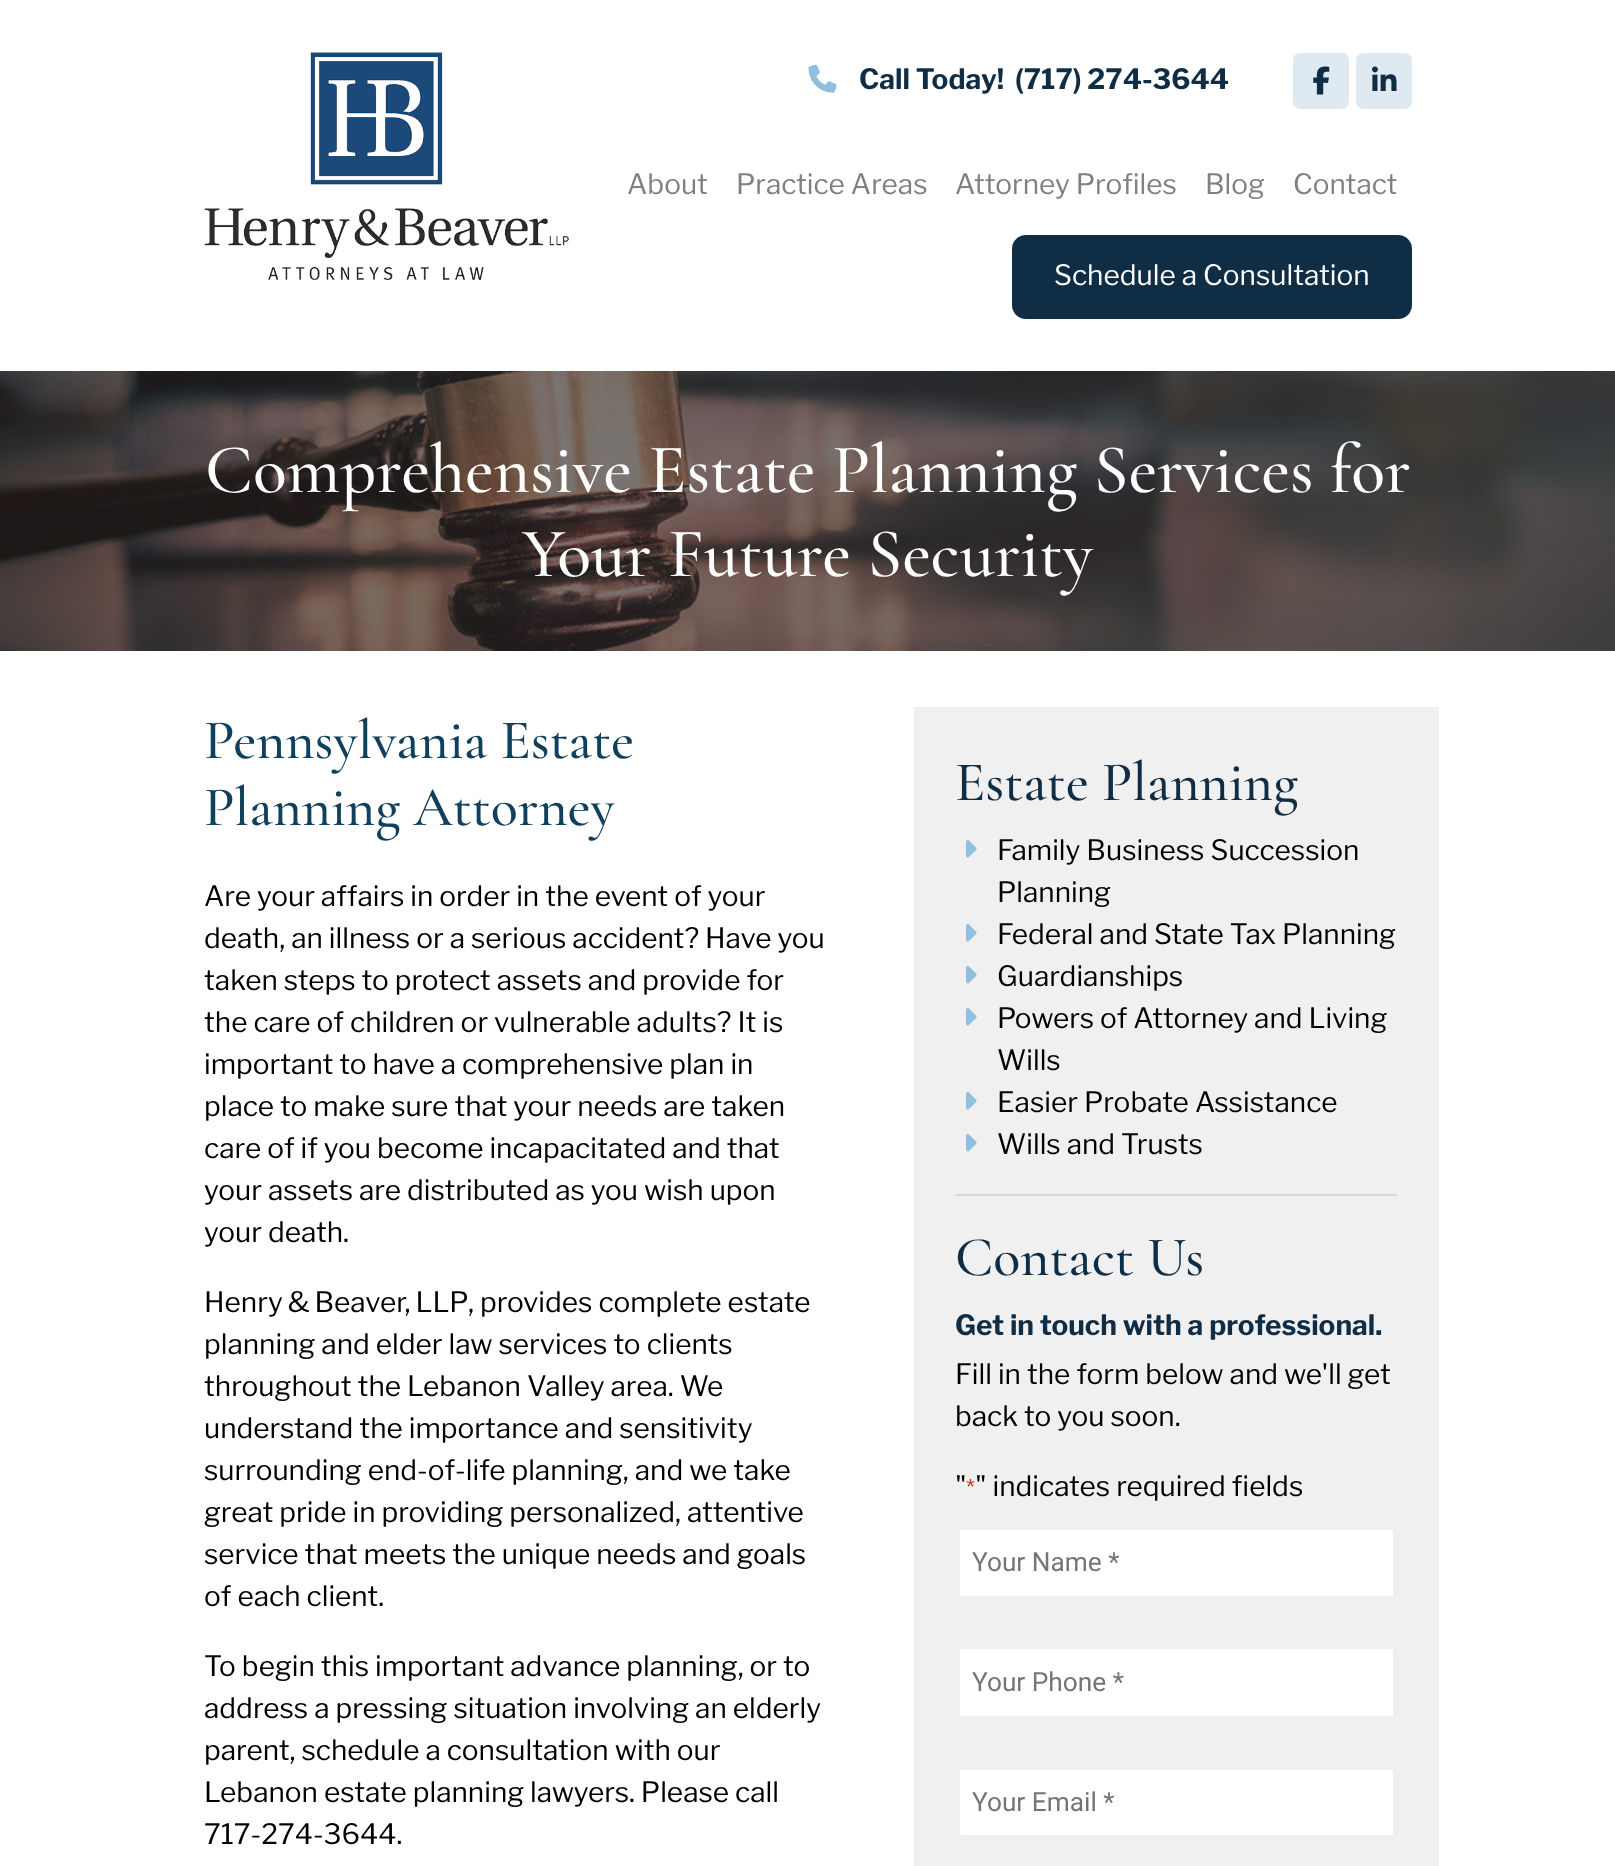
<svg xmlns="http://www.w3.org/2000/svg" width="1615" height="1866" viewBox="0 0 1615 1866">
  <rect width="100%" height="100%" fill="#fff"/>
  <image x="204" y="52" width="365" height="228" href="img/1.png"/>
  <image x="808" y="64" width="29" height="29" href="img/2.png"/>
  <rect x="1293" y="53" width="56" height="56" rx="7" fill="#dfe9f2"/>
  <image x="1313" y="66" width="17" height="29" href="img/3.png"/>
  <rect x="1356" y="53" width="56" height="56" rx="7" fill="#dfe9f2"/>
  <image x="1372" y="66" width="25" height="25" href="img/4.png"/>
  <rect x="1012" y="235" width="400" height="84" rx="14" fill="#102d46"/>
  <image x="0" y="371" width="1615" height="280" href="img/5.png"/>
  <path d="M914 707h525v1159H914z" fill="#f0f0f0"/>
  <image x="966" y="840" width="11" height="18" href="img/6.png"/>
  <image x="966" y="924" width="11" height="18" href="img/6.png"/>
  <image x="966" y="966" width="11" height="18" href="img/6.png"/>
  <image x="966" y="1008" width="11" height="18" href="img/6.png"/>
  <image x="966" y="1092" width="11" height="18" href="img/6.png"/>
  <image x="966" y="1134" width="11" height="18" href="img/6.png"/>
  <path d="M956 1194h441v2H956z" fill="#d8d8d8"/>
  <rect x="958" y="1528" width="437" height="70" rx="3" fill="#fff" stroke="#efefef" stroke-width="4"/>
  <rect x="958" y="1647" width="437" height="71" rx="3" fill="#fff" stroke="#efefef" stroke-width="4"/>
  <rect x="958" y="1768" width="437" height="69" rx="3" fill="#fff" stroke="#efefef" stroke-width="4"/>
  <g font-family="Libre Franklin" font-size="28" font-weight="bold" fill="#102d46">
    <text x="859" y="89">Call Today!</text>
    <text x="1015" y="89">(717) 274-3644</text>
  </g>
  <g font-family="Libre Franklin" font-size="28" fill="#808080">
    <text x="627" y="194">About</text>
    <text x="736" y="194">Practice Areas</text>
    <text x="955" y="194">Attorney Profiles</text>
    <text x="1205" y="194">Blog</text>
    <text x="1293" y="194">Contact</text>
  </g>
  <text x="1054" y="285" font-family="Libre Franklin" font-size="28" fill="#fff">Schedule a Consultation</text>
  <g font-family="Cormorant Garamond" font-size="70" font-weight="300" fill="#fff">
    <text x="205" y="492">Comprehensive Estate Planning Services for</text>
    <text x="522" y="576">Your Future Security</text>
  </g>
  <g font-family="Cormorant Garamond" font-size="56" font-weight="300" fill="#11405c">
    <text x="204" y="758">Pennsylvania Estate</text>
    <text x="204" y="825">Planning Attorney</text>
  </g>
  <g font-family="Libre Franklin" font-size="28" fill="#000">
    <text x="204" y="906">Are your affairs in order in the event of your</text>
    <text x="204" y="948">death, an illness or a serious accident? Have you</text>
    <text x="204" y="990">taken steps to protect assets and provide for</text>
    <text x="204" y="1032">the care of children or vulnerable adults? It is</text>
    <text x="204" y="1074">important to have a comprehensive plan in</text>
    <text x="204" y="1116">place to make sure that your needs are taken</text>
    <text x="204" y="1158">care of if you become incapacitated and that</text>
    <text x="204" y="1200">your assets are distributed as you wish upon</text>
    <text x="204" y="1242">your death.</text>
    <text x="204" y="1312" word-spacing="-1">Henry &amp; Beaver, LLP</text>
    <text x="468" y="1312">, provides complete estate</text>
    <text x="204" y="1354">planning and elder law services to clients</text>
    <text x="204" y="1396">throughout the Lebanon Valley area. We</text>
    <text x="204" y="1438">understand the importance and sensitivity</text>
    <text x="204" y="1480">surrounding end-of-life planning, and we take</text>
    <text x="204" y="1522">great pride in providing personalized, attentive</text>
    <text x="204" y="1564">service that meets the unique needs and goals</text>
    <text x="204" y="1606">of each client.</text>
    <text x="204" y="1676">To begin this important advance planning, or to</text>
    <text x="204" y="1718">address a pressing situation involving an elderly</text>
    <text x="204" y="1760">parent, schedule a consultation with our</text>
    <text x="204" y="1802">Lebanon estate planning lawyers. Please call</text>
    <text x="204" y="1844">717-274-3644.</text>
  </g>
  <text x="955" y="800" font-family="Cormorant Garamond" font-size="56" font-weight="300" fill="#102d46">Estate Planning</text>
  <g font-family="Libre Franklin" font-size="28" fill="#000">
    <text x="997" y="860">Family Business Succession</text>
    <text x="997" y="902">Planning</text>
    <text x="997" y="944">Federal and State Tax Planning</text>
    <text x="997" y="986">Guardianships</text>
    <text x="997" y="1028">Powers of Attorney and Living</text>
    <text x="997" y="1070">Wills</text>
    <text x="997" y="1112">Easier Probate Assistance</text>
    <text x="997" y="1154">Wills and Trusts</text>
  </g>
  <text x="955" y="1275" font-family="Cormorant Garamond" font-size="56" font-weight="300" fill="#102d46">Contact Us</text>
  <text x="955" y="1335" font-family="Libre Franklin" font-size="28" font-weight="bold" fill="#102d46">Get in touch with a professional.</text>
  <g font-family="Libre Franklin" font-size="28" fill="#000">
    <text x="955" y="1384">Fill in the form below and we'll get</text>
    <text x="955" y="1426">back to you soon.</text>
    <text x="955" y="1496">"</text>
  </g>
  <text x="966" y="1496" font-family="Libre Franklin" font-size="23" fill="#c02b0a">*</text>
  <text x="975" y="1496" font-family="Libre Franklin" font-size="28" fill="#000">" indicates required fields</text>
  <g font-family="Roboto" font-size="26.25" fill="#757575">
    <text x="972" y="1571">Your Name *</text>
    <text x="972" y="1691">Your Phone *</text>
    <text x="972" y="1811">Your Email *</text>
  </g>
</svg>
